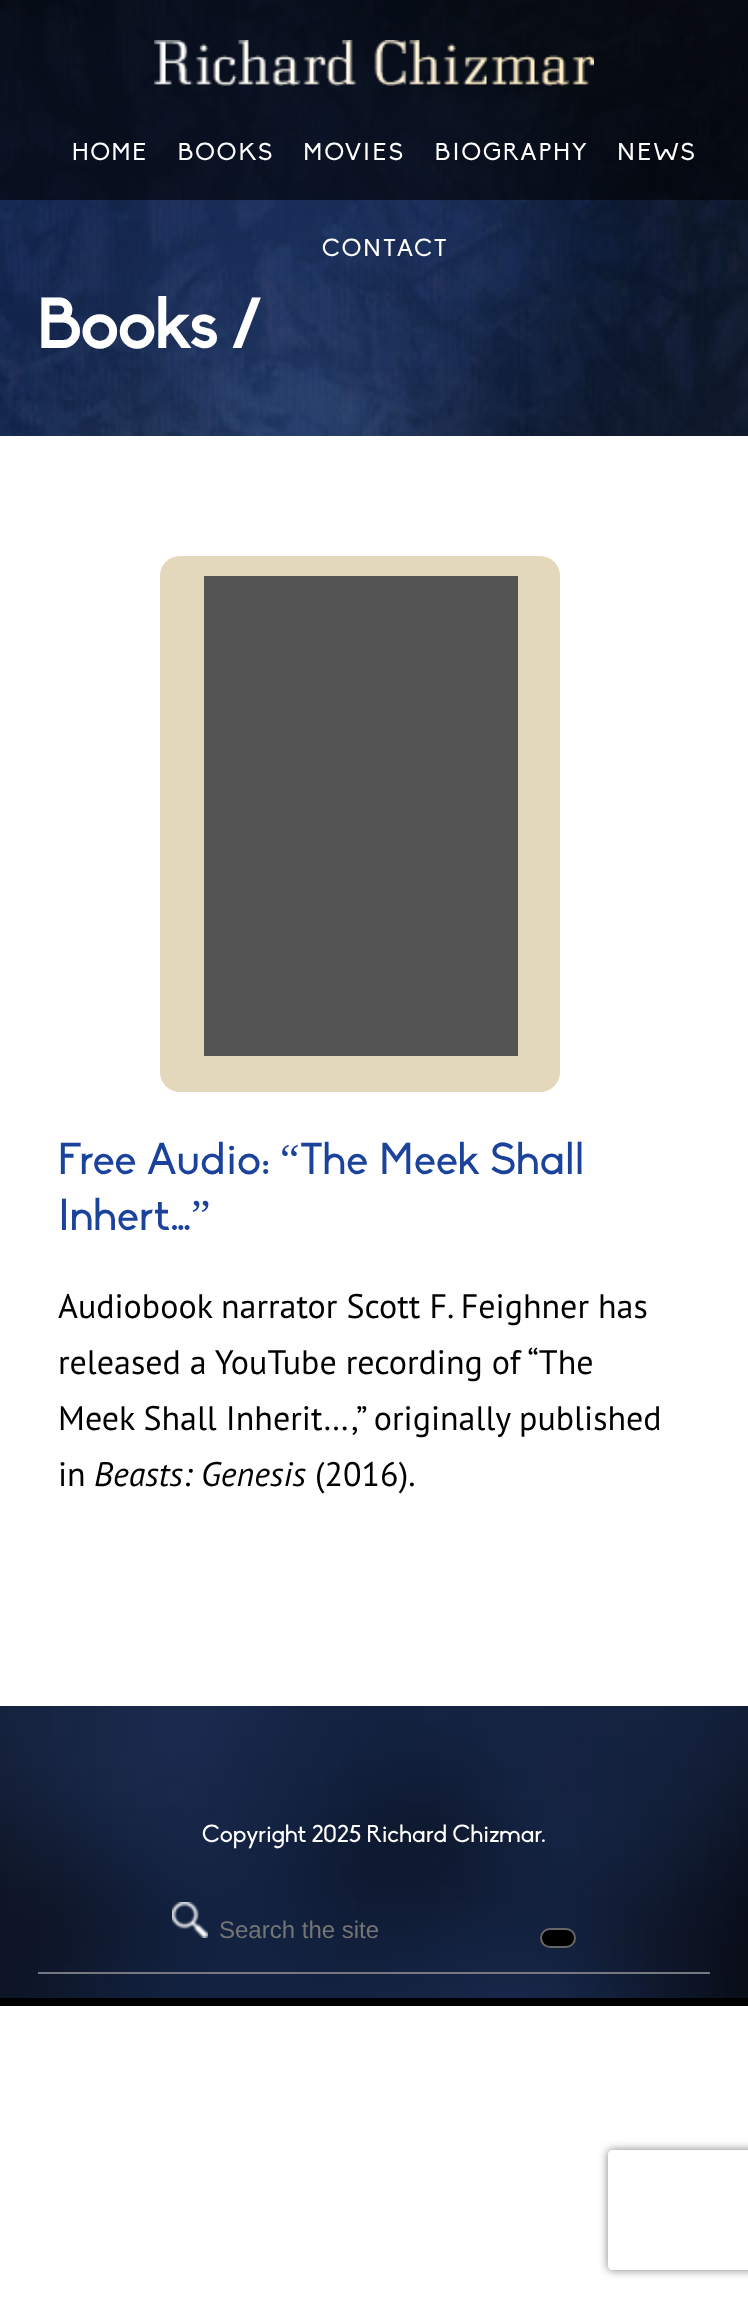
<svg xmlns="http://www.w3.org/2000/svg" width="748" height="2297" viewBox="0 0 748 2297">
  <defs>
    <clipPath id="clip1"><path d="M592 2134H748V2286H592ZM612 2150H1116C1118 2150 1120 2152 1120 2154V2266C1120 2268 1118 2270 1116 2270H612C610 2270 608 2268 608 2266V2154C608 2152 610 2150 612 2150Z" clip-rule="evenodd"/></clipPath>
  </defs>
  <rect width="100%" height="100%" fill="#fff"/>
  <image x="0" y="0" width="748" height="436" href="img/2.png"/>
  <path d="M0 0h748v200H0z" fill="#00000099"/>
  <image x="154" y="40" width="440" height="46" href="img/1.png"/>
  <rect x="160" y="556" width="400" height="536" rx="20" fill="#e3d7bc"/>
  <path d="M204 576h314v480H204z" fill="#545454"/>
  <path d="M0 1998h748v8H0z" fill="#000"/>
  <image x="0" y="1706" width="748" height="292" href="img/3.png"/>
  <path d="M38 1972h672v2H38z" fill="#757881"/>
  <image x="172" y="1902" width="36" height="36" href="img/4.png"/>
  <rect x="541" y="1929" width="34" height="18" rx="9" fill="#000" stroke="#666" stroke-width="2"/>
  <g clip-path="url(#clip1)">
    <rect x="608" y="2150" width="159" height="120" rx="4" fill="#808080" filter="blur(5px)"/>
  </g>
  <g font-family="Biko" font-size="24" letter-spacing="2" fill="#fff">
    <text x="72" y="160">HOME</text>
    <text x="178" y="160">BOOKS</text>
    <text x="303" y="160">MOVIES</text>
    <text x="435" y="160">BIOGRAPHY</text>
    <text x="617" y="160">NEWS</text>
    <text x="322" y="256">CONTACT</text>
  </g>
  <text x="37" y="348" font-family="Biko" font-size="68" font-weight="bold" fill="#fff">Books /</text>
  <text x="58" y="1174" font-family="Biko" font-size="44" fill="#1b439b">Free Audio:</text>
  <text x="280" y="1174" font-family="Liberation Serif" font-size="44" fill="#1b439b">“</text>
  <g font-family="Biko" font-size="44" fill="#1b439b">
    <text x="300" y="1174">The Meek Shall</text>
    <text x="58" y="1230">Inhert…</text>
  </g>
  <text x="191" y="1230" font-family="Liberation Serif" font-size="44" fill="#1b439b">”</text>
  <g font-family="PT Sans" font-size="34" fill="#000">
    <text x="58" y="1318">Audiobook narrator Scott F. Feighner has</text>
    <text x="58" y="1374">released a YouTube recording of “The</text>
    <text x="58" y="1430">Meek Shall Inherit…,” originally published</text>
    <text x="58" y="1486">in</text>
  </g>
  <text x="94" y="1486" font-family="PT Sans" font-size="34" font-style="italic" fill="#000">Beasts: Genesis</text>
  <text x="315" y="1486" font-family="PT Sans" font-size="34" fill="#000">(2016).</text>
  <text x="202" y="1842" font-family="Biko" font-size="24" fill="#fff">Copyright 2025 Richard Chizmar.</text>
  <text x="219" y="1938" font-family="Liberation Sans" font-size="24" fill="#757575">Search the site</text>
</svg>
